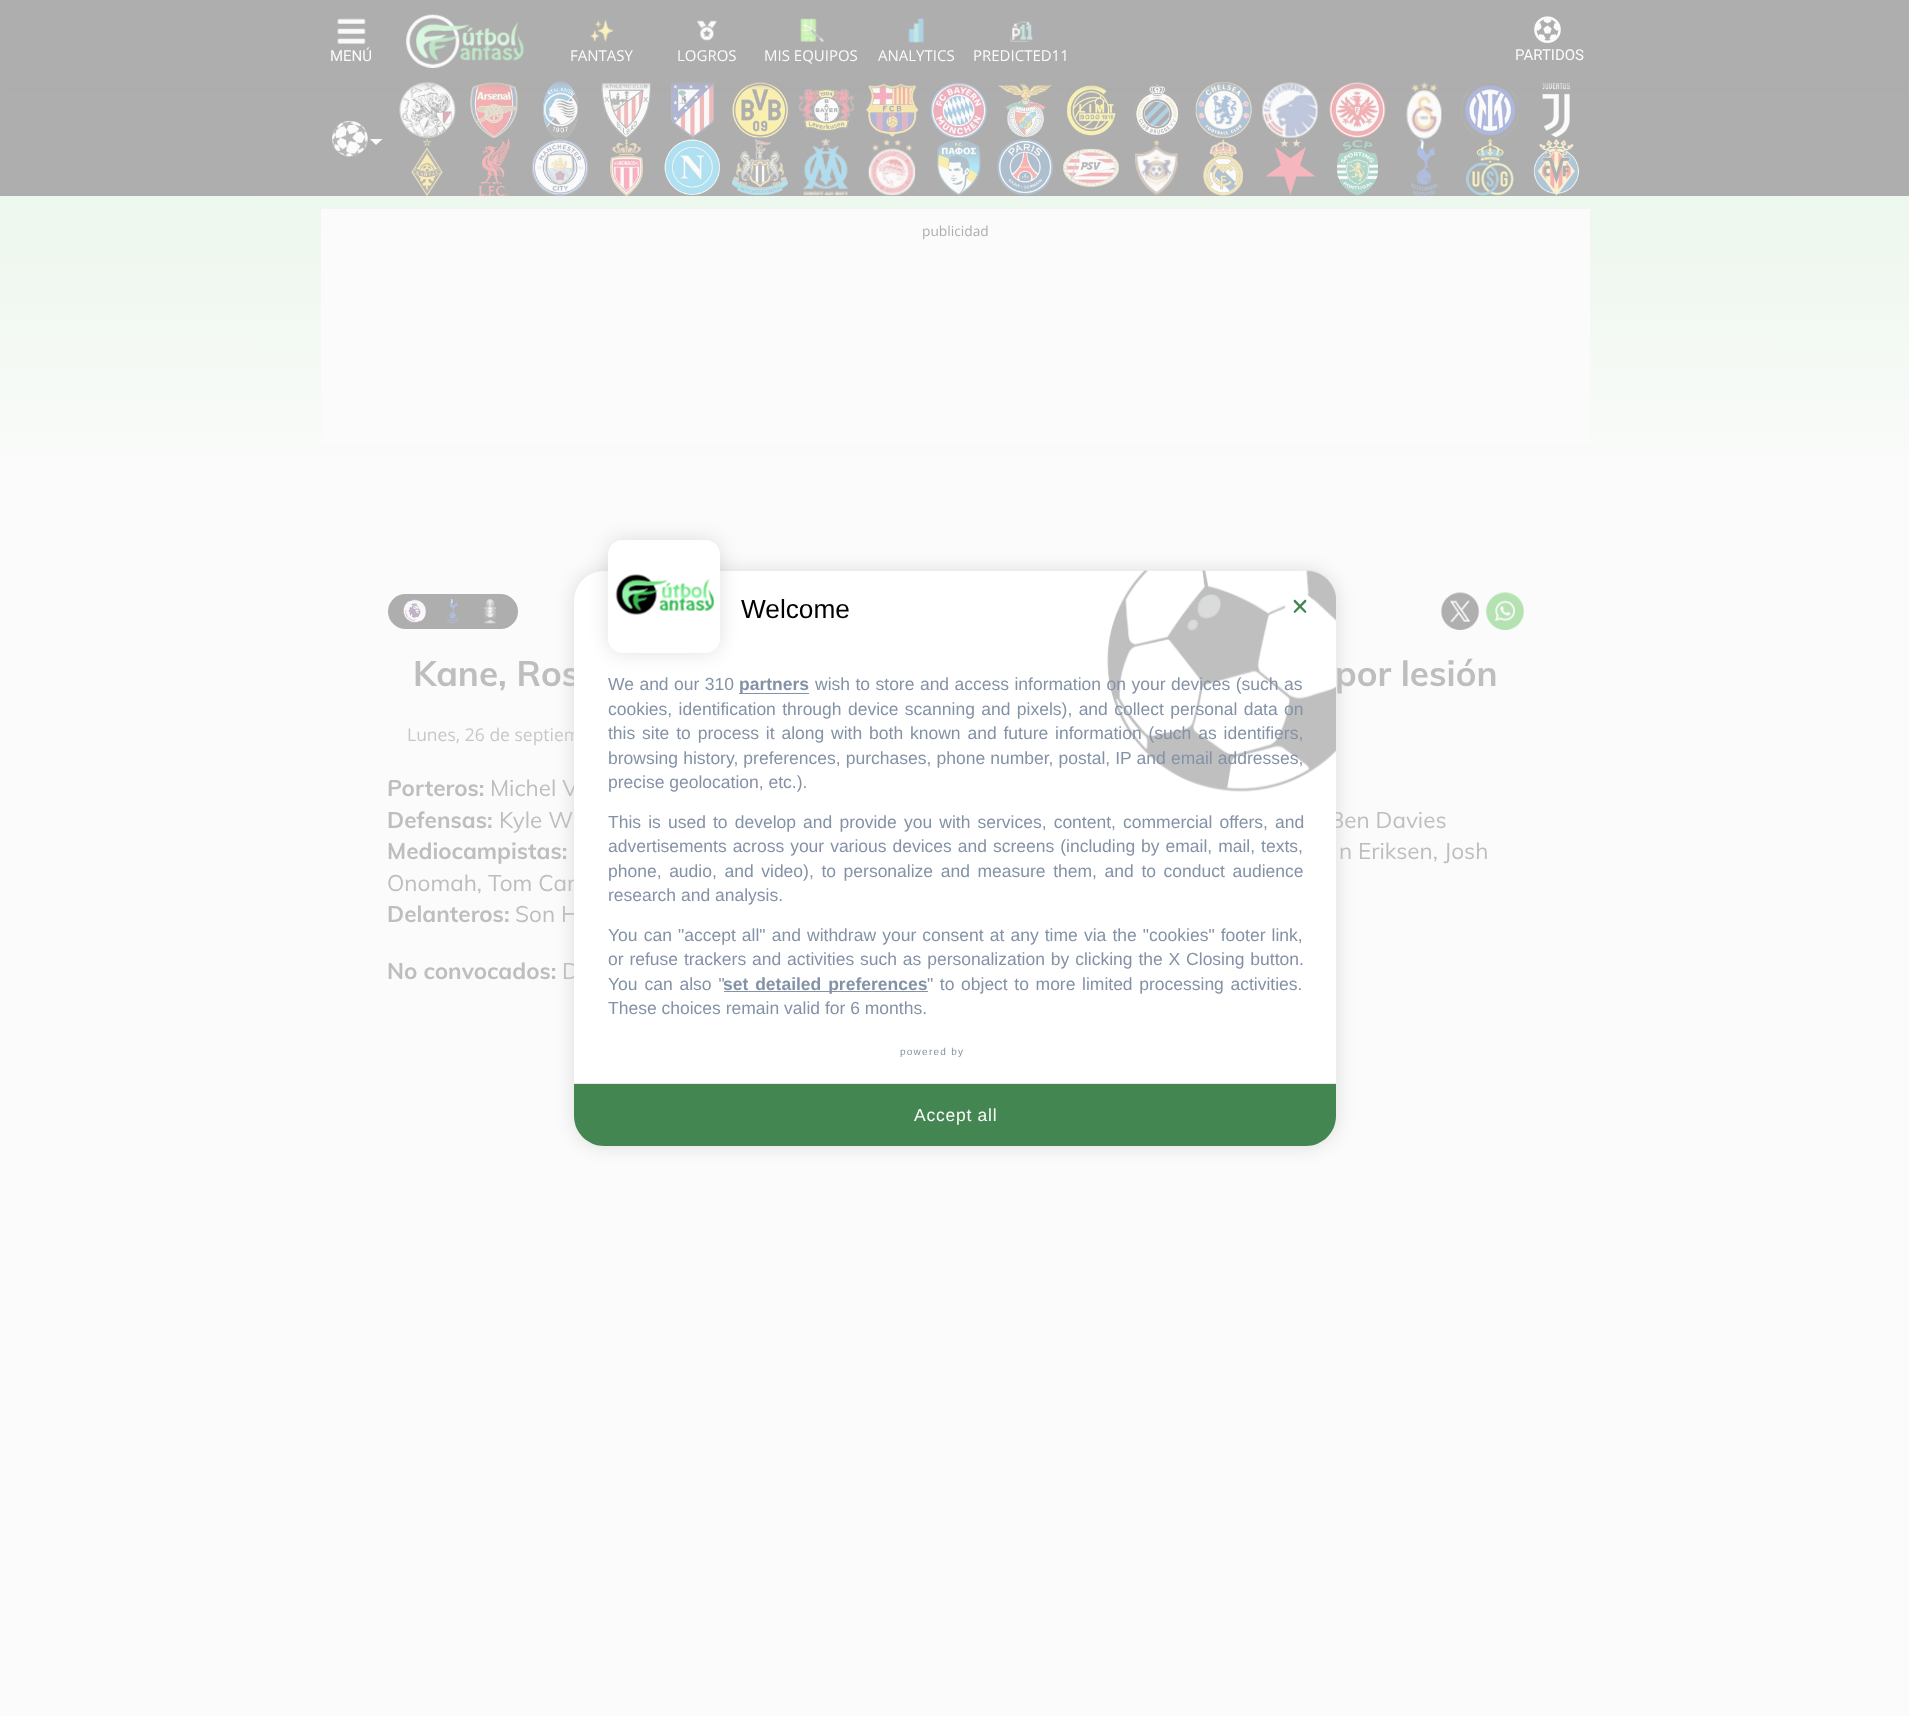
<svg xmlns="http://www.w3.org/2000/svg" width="1909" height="1716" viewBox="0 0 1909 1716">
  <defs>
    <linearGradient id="g1" gradientUnits="userSpaceOnUse" x1="955" y1="0" x2="955" y2="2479"><stop offset="0" stop-color="#e3f5e4"/><stop offset="0.2" stop-color="#fbfbfb"/><stop offset="1" stop-color="#fbfbfb"/></linearGradient>
    <clipPath id="clip1"><rect x="388" y="776" width="1136" height="158" rx="10"/></clipPath>
  </defs>
  <rect width="100%" height="100%" fill="#fff"/>
  <path d="M0 196h1909v1520H0z" fill="url(#g1)"/>
  <path d="M0 81h1909v115H0z" fill="#aeaeae"/>
  <image x="399" y="82" width="57" height="56" href="img/10.png"/>
  <image x="470" y="82" width="48" height="56" href="img/11.png"/>
  <image x="543" y="81" width="35" height="57" href="img/12.png"/>
  <image x="601" y="82" width="51" height="57" href="img/13.png"/>
  <image x="671" y="82" width="44" height="56" href="img/14.png"/>
  <image x="732" y="82" width="56" height="56" href="img/15.png"/>
  <image x="798" y="88" width="57" height="43" href="img/16.png"/>
  <image x="864" y="82" width="56" height="56" href="img/17.png"/>
  <image x="930" y="82" width="57" height="56" href="img/18.png"/>
  <image x="998" y="83" width="55" height="54" href="img/19.png"/>
  <image x="1066" y="85" width="50" height="51" href="img/20.png"/>
  <image x="1134" y="82" width="46" height="55" href="img/21.png"/>
  <image x="1195" y="82" width="57" height="56" href="img/22.png"/>
  <image x="1262" y="82" width="56" height="56" href="img/23.png"/>
  <image x="1329" y="82" width="57" height="56" href="img/24.png"/>
  <image x="1406" y="81" width="36" height="58" href="img/25.png"/>
  <image x="1461" y="81" width="58" height="58" href="img/26.png"/>
  <image x="1542" y="83" width="28" height="55" href="img/27.png"/>
  <path d="M0 4h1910v81H0z" fill="#aeaeae99" filter="blur(3px)"/>
  <path d="M0 0h1909v81H0z" fill="#aeaeae"/>
  <image x="337" y="18" width="29" height="26" href="img/1.png"/>
  <image x="406" y="14" width="119" height="54" href="img/2.png"/>
  <image x="590" y="19" width="24" height="23" href="img/3.png"/>
  <image x="697" y="20" width="20" height="21" href="img/4.png"/>
  <image x="800" y="18" width="25" height="24" href="img/5.png"/>
  <image x="908" y="18" width="17" height="25" href="img/6.png"/>
  <image x="1010" y="20" width="23" height="22" href="img/7.png"/>
  <image x="1534" y="16" width="27" height="27" href="img/8.png"/>
  <image x="332" y="120" width="36" height="37" href="img/9.png"/>
  <path d="M370 139H382.5L376 145Z" fill="#fbfbfb"/>
  <image x="411" y="138" width="32" height="58" href="img/28.png"/>
  <image x="478" y="138" width="32" height="59" href="img/29.png"/>
  <image x="532" y="139" width="56" height="57" href="img/30.png"/>
  <image x="610" y="138" width="33" height="59" href="img/31.png"/>
  <image x="664" y="139" width="56" height="56" href="img/32.png"/>
  <image x="732" y="139" width="56" height="56" href="img/33.png"/>
  <image x="803" y="138" width="45" height="58" href="img/34.png"/>
  <image x="868" y="139" width="48" height="57" href="img/35.png"/>
  <image x="937" y="140" width="44" height="56" href="img/36.png"/>
  <image x="997" y="138" width="57" height="58" href="img/37.png"/>
  <image x="1063" y="148" width="56" height="39" href="img/38.png"/>
  <image x="1134" y="139" width="44" height="57" href="img/39.png"/>
  <image x="1203" y="139" width="40" height="57" href="img/40.png"/>
  <image x="1265" y="138" width="51" height="57" href="img/41.png"/>
  <image x="1337" y="140" width="41" height="56" href="img/42.png"/>
  <image x="1410" y="139" width="28" height="58" href="img/43.png"/>
  <image x="1465" y="138" width="49" height="58" href="img/44.png"/>
  <image x="1533" y="139" width="46" height="57" href="img/45.png"/>
  <path d="M321 209h1269v235H321z" fill="#fbfbfb"/>
  <rect x="388" y="594" width="130" height="35" rx="17.5" fill="#aeaeae"/>
  <image x="403" y="599" width="24" height="24" href="img/46.png"/>
  <image x="446" y="598" width="13" height="26" href="img/47.png"/>
  <image x="483" y="598" width="14" height="26" href="img/48.png"/>
  <image x="1441" y="592" width="38" height="38" href="img/49.png"/>
  <image x="1486" y="592" width="38" height="38" href="img/50.png"/>
  <rect x="574" y="571" width="762" height="575" rx="30" fill="#0000001f" filter="blur(9.5px)"/>
  <text x="330" y="61" font-family="Roboto" font-size="15" fill="#fbfbfb">MENÚ</text>
  <g font-family="Open Sans" font-size="15" fill="#fbfbfb">
    <text x="570" y="61">FANTASY</text>
    <text x="677" y="61">LOGROS</text>
    <text x="764" y="61">MIS EQUIPOS</text>
    <text x="878" y="61">ANALYTICS</text>
    <text x="973" y="61">PREDICTED11</text>
  </g>
  <text x="1515" y="60" font-family="Roboto" font-size="15" fill="#fbfbfb">PARTIDOS</text>
  <text x="922" y="236" font-family="Open Sans" font-size="13.75" fill="#aeaeae">publicidad</text>
  <g font-family="Muli" font-size="35" font-weight="bold" fill="#bebebe">
    <text x="413" y="686">Kane, Ros</text>
    <text x="1335" y="686">por lesión</text>
  </g>
  <text x="407" y="741" font-family="Open Sans" font-size="17.5" fill="#c8c8c8">Lunes, 26 de septiem</text>
  <g clip-path="url(#clip1)">
    <text x="387" y="796" font-family="Muli" font-size="22.5" font-weight="bold" fill="#bebebe">Porteros:</text>
  </g>
  <text x="490" y="796" font-family="Muli" font-size="22.5" fill="#bebebe">Michel V</text>
  <text x="387" y="828" font-family="Muli" font-size="22.5" font-weight="bold" fill="#bebebe">Defensas:</text>
  <g font-family="Muli" font-size="22.5" fill="#bebebe">
    <text x="499" y="828">Kyle W</text>
    <text x="1329" y="828">Ben Davies</text>
  </g>
  <text x="387" y="859" font-family="Muli" font-size="22.5" font-weight="bold" fill="#bebebe">Mediocampistas:</text>
  <g font-family="Muli" font-size="22.5" fill="#bebebe">
    <text x="1339" y="859">n Eriksen, Josh</text>
    <text x="387" y="891">Onomah, Tom Car</text>
  </g>
  <text x="387" y="922" font-family="Muli" font-size="22.5" font-weight="bold" fill="#bebebe">Delanteros:</text>
  <text x="515" y="922" font-family="Muli" font-size="22.5" fill="#bebebe">Son H</text>
  <text x="387" y="979" font-family="Muli" font-size="22.5" font-weight="bold" fill="#bebebe">No convocados:</text>
  <text x="562" y="979" font-family="Muli" font-size="22.5" fill="#bebebe">D</text>
  <rect x="574" y="571" width="762" height="575" rx="30" fill="#fff"/>
  <rect x="608" y="540" width="112" height="113" rx="15" fill="#0000001f" filter="blur(9.5px)"/>
  <rect x="608" y="540" width="112" height="113" rx="15" fill="#fff"/>
  <image x="615" y="574" width="99" height="41" href="img/51.png"/>
  <rect x="611" y="543" width="106" height="107" rx="12" fill="none" stroke="#fff" stroke-width="6"/>
  <image x="1107" y="570" width="229" height="222" href="img/52.png"/>
  <text x="741" y="618" font-family="Liberation Sans" font-size="26.25" fill="#000">Welcome</text>
  <circle cx="1300" cy="608" r="15" fill="#fff"/>
  <path d="M1295.5 600L1306 611C1306.5 611.5 1306.5 612 1306 612.5C1305.5 613 1305 613 1304.5 612.5L1294 602C1293.5 601.5 1293.5 600.5 1294 600C1294.5 599.5 1295 599.5 1295.5 600Z" fill="#41864f"/>
  <path d="M1294 611L1304.5 600C1305 599.5 1305.5 599.5 1306 600C1306.5 600.5 1306.5 601.5 1306 602L1295.5 612.5C1295 613 1294.5 613 1294 612.5C1293.5 612 1293.5 611.5 1294 611Z" fill="#41864f"/>
  <text x="608" y="690" word-spacing="0.6" font-family="Liberation Sans" font-size="17.5" fill="#8492a6">We and our 310</text>
  <path d="M739 693h70v1H739z" fill="#8492a6"/>
  <text x="739" y="690" font-family="Liberation Sans" font-size="17.5" font-weight="bold" fill="#8492a6">partners</text>
  <g font-family="Liberation Sans" font-size="17.5" fill="#8492a6">
    <text x="815" y="690" word-spacing="0.6">wish to store and access information on your devices (such as</text>
    <text x="608" y="715" word-spacing="1.5">cookies, identification through device scanning and pixels), and collect personal data on</text>
    <text x="608" y="739" word-spacing="2">this site to process it along with both known and future information (such as identifiers,</text>
    <text x="608" y="764" word-spacing="0.25">browsing history, preferences, purchases, phone number, postal, IP and email addresses,</text>
    <text x="608" y="788">precise geolocation, etc.).</text>
    <text x="608" y="828" word-spacing="2.25">This is used to develop and provide you with services, content, commercial offers, and</text>
    <text x="608" y="852" word-spacing="1.1">advertisements across your various devices and screens (including by email, mail, texts,</text>
    <text x="608" y="877" word-spacing="2.75">phone, audio, and video), to personalize and measure them, and to conduct audience</text>
    <text x="608" y="901">research and analysis.</text>
    <text x="608" y="941" word-spacing="1.25">You can "accept all" and withdraw your consent at any time via the "cookies" footer link,</text>
    <text x="608" y="965" word-spacing="1">or refuse trackers and activities such as personalization by clicking the X Closing button.</text>
    <text x="608" y="990" word-spacing="2">You can also "</text>
  </g>
  <path d="M724 991h204v1H724z" fill="#8492a6"/>
  <text x="723" y="990" word-spacing="2" font-family="Liberation Sans" font-size="17.5" font-weight="bold" fill="#8492a6">set detailed preferences</text>
  <g font-family="Liberation Sans" font-size="17.5" fill="#8492a6">
    <text x="927" y="990" word-spacing="1.75">" to object to more limited processing activities.</text>
    <text x="608" y="1014">These choices remain valid for 6 months.</text>
  </g>
  <text x="900" y="1055" font-family="Liberation Sans" font-size="10" letter-spacing="1.25" fill="#8492a6">powered by</text>
  <path d="M574 1083H1336V1116C1336 1132.5 1322.5 1146 1306 1146H604C587.5 1146 574 1132.5 574 1116Z" fill="#448651"/>
  <path d="M574 1083h762v1H574z" fill="#eaeaea"/>
  <text x="914" y="1121" font-family="Liberation Sans" font-size="17.5" letter-spacing="0.75" fill="#fbfbfb">Accept all</text>
</svg>
